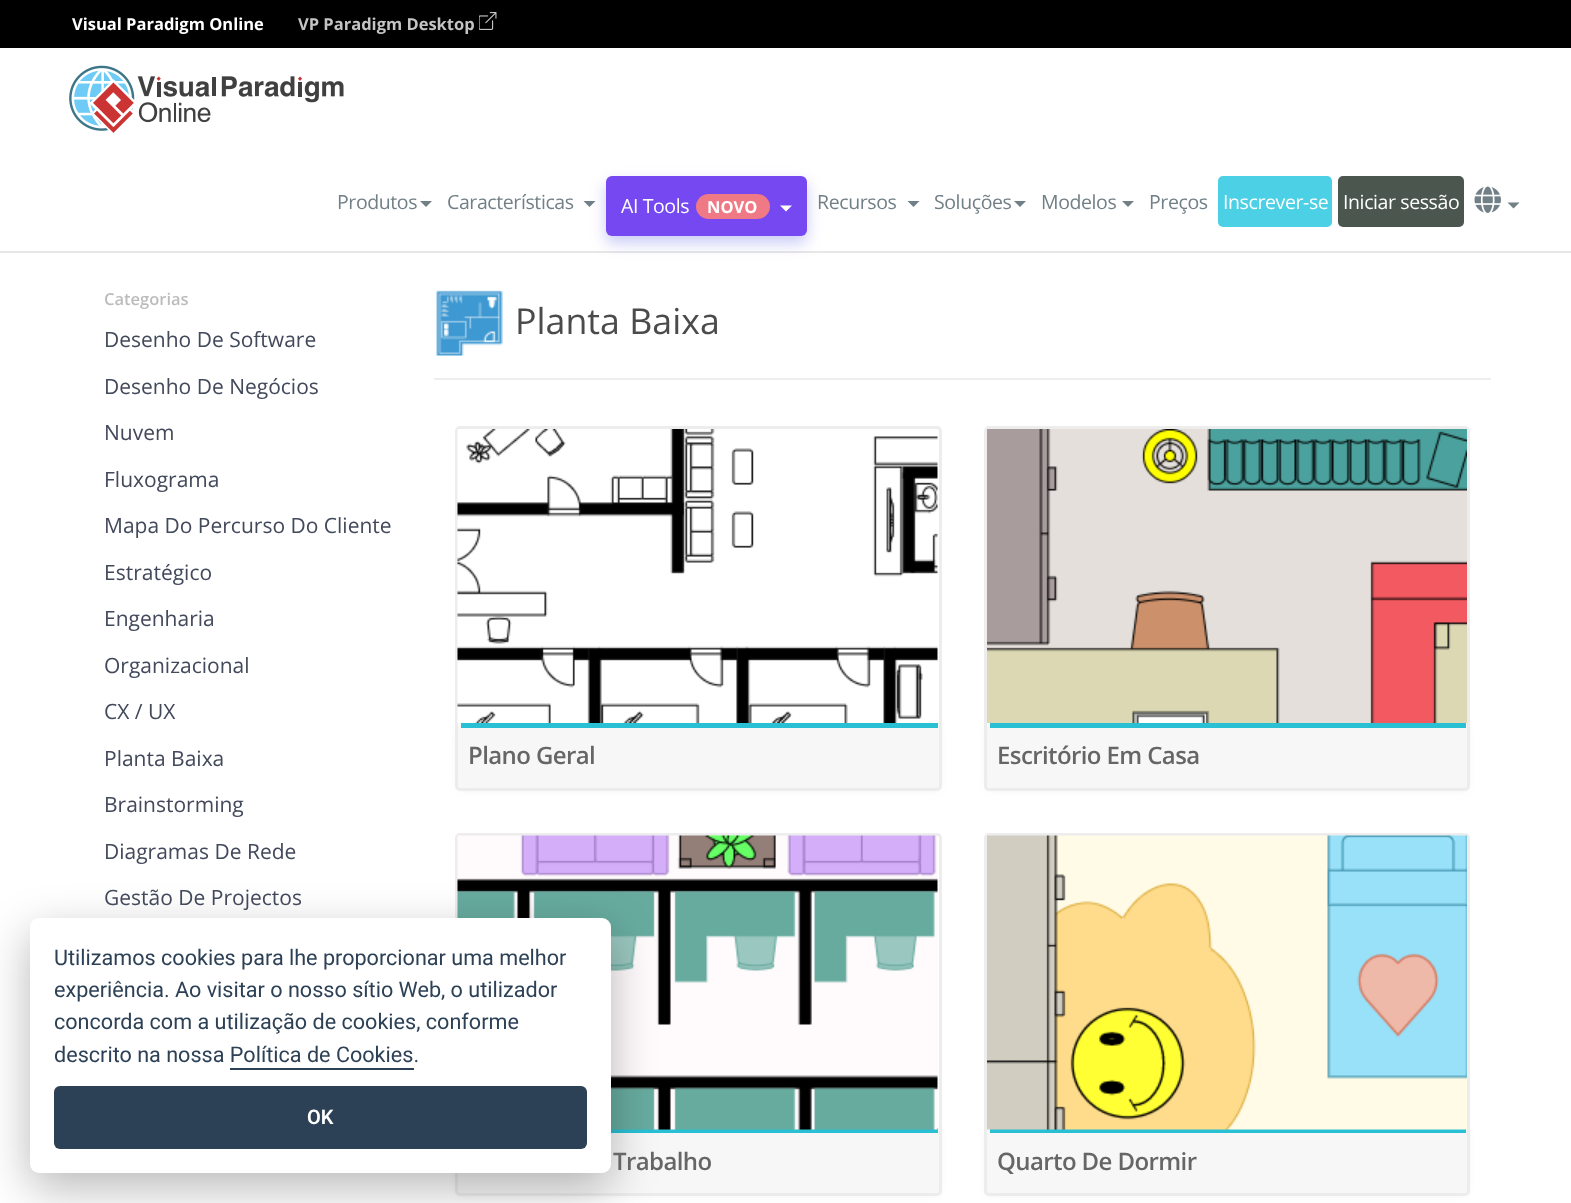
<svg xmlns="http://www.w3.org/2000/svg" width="1571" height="1203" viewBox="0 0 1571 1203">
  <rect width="100%" height="100%" fill="#fff"/>
  <path d="M0 251h1571v2H0z" fill="#e7e7e7"/>
  <path d="M0 0h1571v48H0z" fill="#000"/>
  <image x="479" y="12" width="18" height="18" href="img/1.png"/>
  <image x="69" y="65" width="275" height="68" href="img/2.png"/>
  <path d="M420 201H432L426 207Z" fill="#717f86"/>
  <path d="M583.5 201H595.5L589.5 207Z" fill="#717f86"/>
  <rect x="606" y="183" width="201" height="60" rx="6" fill="#4c4ee54d" filter="blur(7.5px)"/>
  <rect x="606" y="176" width="201" height="60" rx="6" fill="#7548f1"/>
  <rect x="696" y="194" width="74" height="25" rx="12.5" fill="#ef7a85"/>
  <path d="M780 205.5H792L786 211.5Z" fill="#fff"/>
  <path d="M907.5 201H919.5L913.5 207Z" fill="#717f86"/>
  <path d="M1014 201H1026L1020 207Z" fill="#717f86"/>
  <path d="M1122 201H1134L1128 207Z" fill="#717f86"/>
  <rect x="1218" y="176" width="114" height="51" rx="5" fill="#4cd0e5"/>
  <rect x="1338" y="176" width="126" height="51" rx="5" fill="#4a564e"/>
  <image x="1474" y="186" width="27" height="27" href="img/3.png"/>
  <path d="M1507.5 202.5H1519.5L1513.5 208.5Z" fill="#717f86"/>
  <image x="436" y="290" width="67" height="66" href="img/4.png"/>
  <path d="M434 378h1057v2H434z" fill="#eee"/>
  <rect x="456.5" y="427.5" width="484" height="362" rx="3.5" fill="none" stroke="#ededed" stroke-width="3"/>
  <rect x="458" y="725" width="481" height="64" rx="5" fill="#ebebeb" filter="blur(4px)"/>
  <image x="457" y="429" width="481" height="294" href="img/5.png"/>
  <rect x="458" y="723" width="481" height="65" rx="5" fill="#f7f7f7"/>
  <path d="M461 723h477v5H461z" fill="#29c0d4"/>
  <rect x="985.5" y="427.5" width="483" height="362" rx="3.5" fill="none" stroke="#ededed" stroke-width="3"/>
  <rect x="987" y="725" width="480" height="64" rx="5" fill="#ebebeb" filter="blur(4px)"/>
  <image x="987" y="429" width="480" height="294" href="img/6.png"/>
  <rect x="987" y="723" width="480" height="65" rx="5" fill="#f7f7f7"/>
  <path d="M990 723h476v5H990z" fill="#29c0d4"/>
  <rect x="456.5" y="834.5" width="484" height="360" rx="3.5" fill="none" stroke="#ededed" stroke-width="3"/>
  <rect x="458" y="1130" width="481" height="64" rx="5" fill="#ebebeb" filter="blur(4px)"/>
  <rect x="458" y="1128" width="481" height="65" rx="5" fill="#f7f7f7"/>
  <path d="M611 1128h327v5H611z" fill="#29c0d4"/>
  <image x="457" y="835" width="481" height="295" href="img/7.png"/>
  <rect x="985.5" y="834.5" width="483" height="360" rx="3.5" fill="none" stroke="#ededed" stroke-width="3"/>
  <rect x="987" y="1130" width="480" height="64" rx="5" fill="#ebebeb" filter="blur(4px)"/>
  <rect x="987" y="1128" width="480" height="65" rx="5" fill="#f7f7f7"/>
  <path d="M990 1129h476v4H990z" fill="#29c0d4"/>
  <image x="987" y="835" width="480" height="295" href="img/8.png"/>
  <rect x="30" y="933" width="581" height="255" rx="9" fill="#02020347" filter="blur(22.5px)"/>
  <rect x="30" y="918" width="581" height="255" rx="9" fill="#fff"/>
  <path d="M230 1068h184v2H230z" fill="#2d4156"/>
  <rect x="54" y="1086" width="533" height="63" rx="6" fill="#2d4156"/>
  <text x="72" y="30" font-family="Open Sans" font-size="16.5" font-weight="bold" fill="#fff">Visual Paradigm Online</text>
  <text x="298" y="30" font-family="Open Sans" font-size="16.5" font-weight="bold" fill="#c4c4c4">VP Paradigm Desktop</text>
  <g font-family="Open Sans" font-size="19.5" letter-spacing="-0.4" fill="#717f86">
    <text x="337" y="209">Produtos</text>
    <text x="447" y="209">Características</text>
  </g>
  <text x="621" y="213" font-family="Open Sans" font-size="19.5" letter-spacing="-0.4" fill="#fff">AI Tools</text>
  <text x="707" y="213" font-family="Open Sans" font-size="16.5" font-weight="bold" fill="#fff">NOVO</text>
  <g font-family="Open Sans" font-size="19.5" letter-spacing="-0.4" fill="#717f86">
    <text x="817" y="209">Recursos</text>
    <text x="934" y="209">Soluções</text>
    <text x="1041" y="209">Modelos</text>
    <text x="1149" y="209">Preços</text>
  </g>
  <g font-family="Open Sans" font-size="19.5" letter-spacing="-0.4" fill="#fff">
    <text x="1223" y="209">Inscrever-se</text>
    <text x="1343" y="209">Iniciar sessão</text>
  </g>
  <text x="104" y="305" font-family="Open Sans" font-size="16.5" font-weight="600" fill="#bcbcbc">Categorias</text>
  <g font-family="Open Sans" font-size="21" fill="#42495b">
    <text x="104" y="347">Desenho De Software</text>
    <text x="104" y="394">Desenho De Negócios</text>
    <text x="104" y="440">Nuvem</text>
    <text x="104" y="487">Fluxograma</text>
    <text x="104" y="533">Mapa Do Percurso Do Cliente</text>
    <text x="104" y="580">Estratégico</text>
    <text x="104" y="626">Engenharia</text>
    <text x="104" y="673">Organizacional</text>
    <text x="104" y="719">CX / UX</text>
    <text x="104" y="766">Planta Baixa</text>
    <text x="104" y="812">Brainstorming</text>
    <text x="104" y="859">Diagramas De Rede</text>
    <text x="104" y="905">Gestão De Projectos</text>
  </g>
  <text x="515" y="334" font-family="Open Sans" font-size="35.75" fill="#4b4b4c">Planta Baixa</text>
  <g font-family="Open Sans" font-size="24" font-weight="600" letter-spacing="-0.6" fill="#666">
    <text x="468" y="764">Plano Geral</text>
    <text x="997" y="764">Escritório Em Casa</text>
    <text x="613" y="1170">Trabalho</text>
    <text x="997" y="1170">Quarto De Dormir</text>
  </g>
  <g font-family="Roboto" font-size="21.6" fill="#2d4156">
    <text x="54" y="965">Utilizamos cookies para lhe proporcionar uma melhor</text>
    <text x="54" y="997">experiência. Ao visitar o nosso sítio Web, o utilizador</text>
    <text x="54" y="1029">concorda com a utilização de cookies, conforme</text>
    <text x="54" y="1062">descrito na nossa Política de Cookies.</text>
  </g>
  <text x="307" y="1124" font-family="Roboto" font-size="20" font-weight="600" fill="#fff">OK</text>
</svg>
